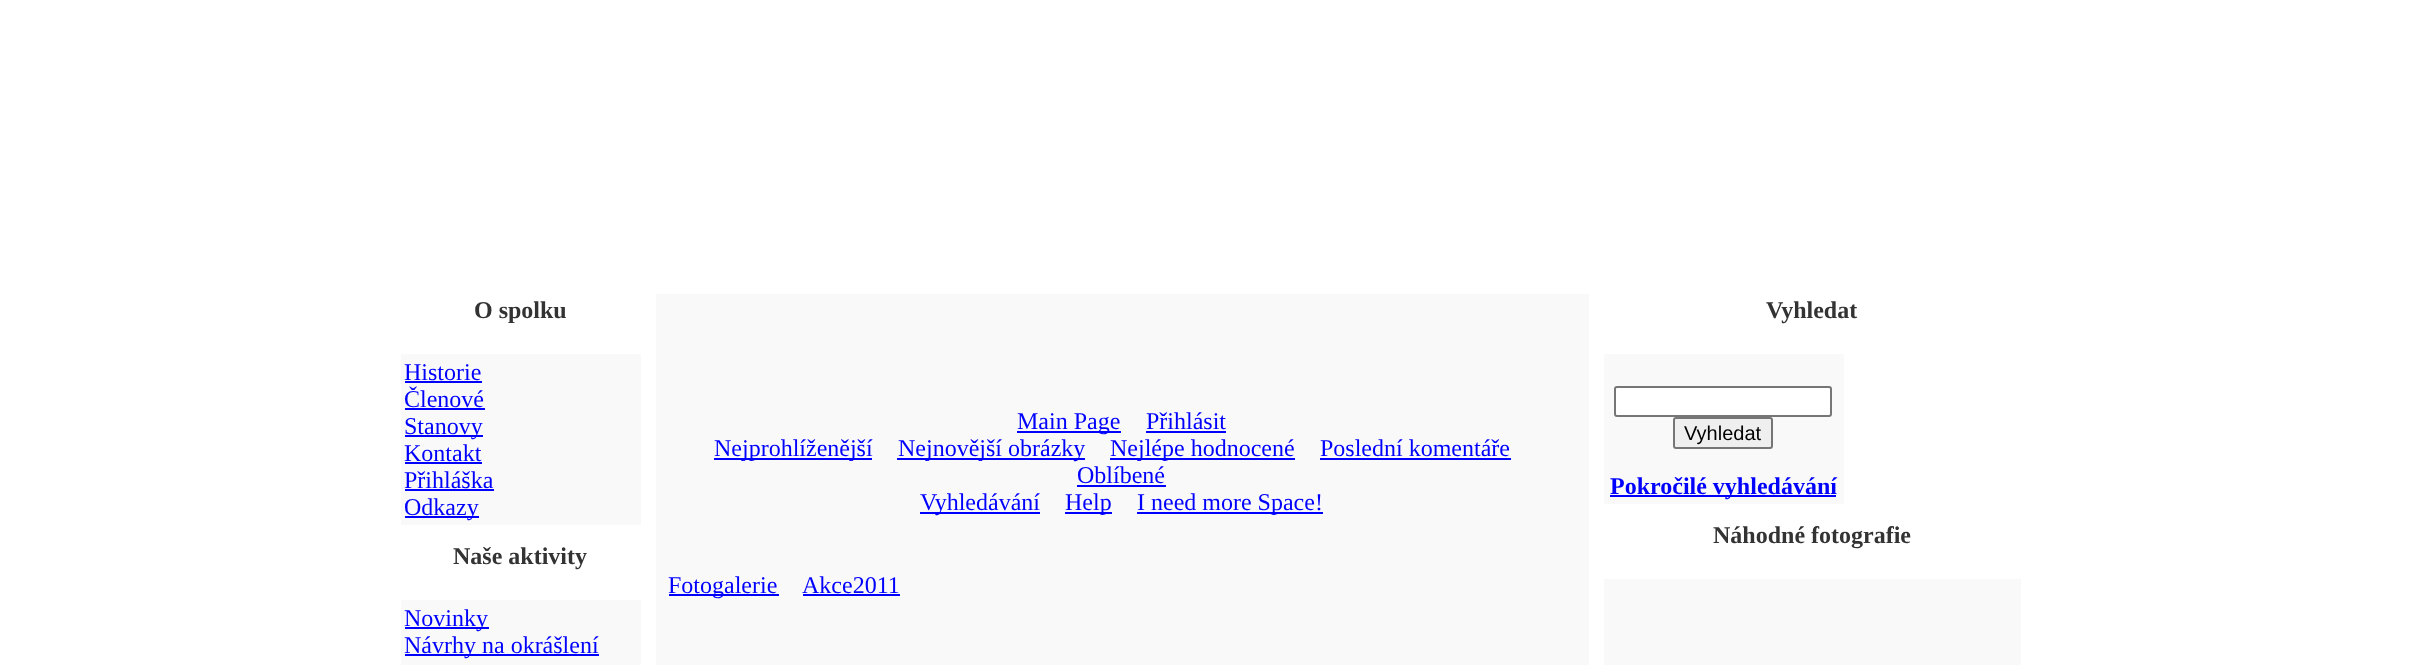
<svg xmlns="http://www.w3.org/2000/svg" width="2420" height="665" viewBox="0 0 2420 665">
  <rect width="100%" height="100%" fill="#fff"/>
  <path d="M401 354h240v171H401z" fill="#f9f9f9"/>
  <path d="M405 381h77v2H405z" fill="#00f"/>
  <path d="M405 408h80v2H405z" fill="#00f"/>
  <path d="M405 435h78v2H405z" fill="#00f"/>
  <path d="M405 462h77v2H405z" fill="#00f"/>
  <path d="M405 489h89v2H405z" fill="#00f"/>
  <path d="M405 516h74v2H405z" fill="#00f"/>
  <path d="M401 600h240v65H401z" fill="#f9f9f9"/>
  <path d="M405 627h84v2H405z" fill="#00f"/>
  <path d="M405 654h194v2H405z" fill="#00f"/>
  <path d="M656 294h933v371H656z" fill="#f9f9f9"/>
  <path d="M1017 431h104v2H1017z" fill="#00f"/>
  <path d="M1146 431h80v2H1146z" fill="#00f"/>
  <path d="M714 458h158v2H714z" fill="#00f"/>
  <path d="M897 458h188v2H897z" fill="#00f"/>
  <path d="M1110 458h185v2H1110z" fill="#00f"/>
  <path d="M1320 458h191v2H1320z" fill="#00f"/>
  <path d="M1077 485h89v2H1077z" fill="#00f"/>
  <path d="M920 512h120v2H920z" fill="#00f"/>
  <path d="M1065 512h47v2H1065z" fill="#00f"/>
  <path d="M1137 512h186v2H1137z" fill="#00f"/>
  <path d="M669 594h110v2H669z" fill="#00f"/>
  <path d="M803 594h97v2H803z" fill="#00f"/>
  <path d="M1604 354h240v150H1604z" fill="#f9f9f9"/>
  <rect x="1615" y="387" width="216" height="29" rx="2" fill="#fff" stroke="#767676" stroke-width="2"/>
  <rect x="1674" y="418" width="98" height="30" rx="2" fill="#efefef" stroke="#767676" stroke-width="2"/>
  <path d="M1610 495h226v2H1610z" fill="#00f"/>
  <path d="M1604 579h417v86H1604z" fill="#f9f9f9"/>
  <text x="474" y="318" font-family="Liberation Serif" font-size="24" font-weight="bold" fill="#333">O spolku</text>
  <g font-family="Liberation Serif" font-size="24" fill="#00f">
    <text x="404" y="380">Historie</text>
    <text x="404" y="407">Členové</text>
    <text x="404" y="434">Stanovy</text>
    <text x="404" y="461">Kontakt</text>
    <text x="404" y="488">Přihláška</text>
    <text x="404" y="515">Odkazy</text>
  </g>
  <text x="453" y="564" font-family="Liberation Serif" font-size="24" font-weight="bold" fill="#333">Naše aktivity</text>
  <g font-family="Liberation Serif" font-size="24" fill="#00f">
    <text x="404" y="626">Novinky</text>
    <text x="404" y="653">Návrhy na okrášlení</text>
    <text x="1017" y="429">Main Page</text>
    <text x="1146" y="429">Přihlásit</text>
    <text x="714" y="456">Nejprohlíženější</text>
    <text x="898" y="456">Nejnovější obrázky</text>
    <text x="1110" y="456">Nejlépe hodnocené</text>
    <text x="1320" y="456">Poslední komentáře</text>
    <text x="1077" y="483">Oblíbené</text>
    <text x="920" y="510">Vyhledávání</text>
    <text x="1065" y="510">Help</text>
    <text x="1137" y="510">I need more Space!</text>
    <text x="668" y="593">Fotogalerie</text>
    <text x="802" y="593">Akce2011</text>
  </g>
  <text x="1766" y="318" font-family="Liberation Serif" font-size="24" font-weight="bold" fill="#333">Vyhledat</text>
  <text x="1684" y="440" font-family="Liberation Sans" font-size="20" fill="#000">Vyhledat</text>
  <text x="1610" y="494" font-family="Liberation Serif" font-size="24" font-weight="bold" fill="#00f">Pokročilé vyhledávání</text>
  <text x="1713" y="543" font-family="Liberation Serif" font-size="24" font-weight="bold" fill="#333">Náhodné fotografie</text>
</svg>
